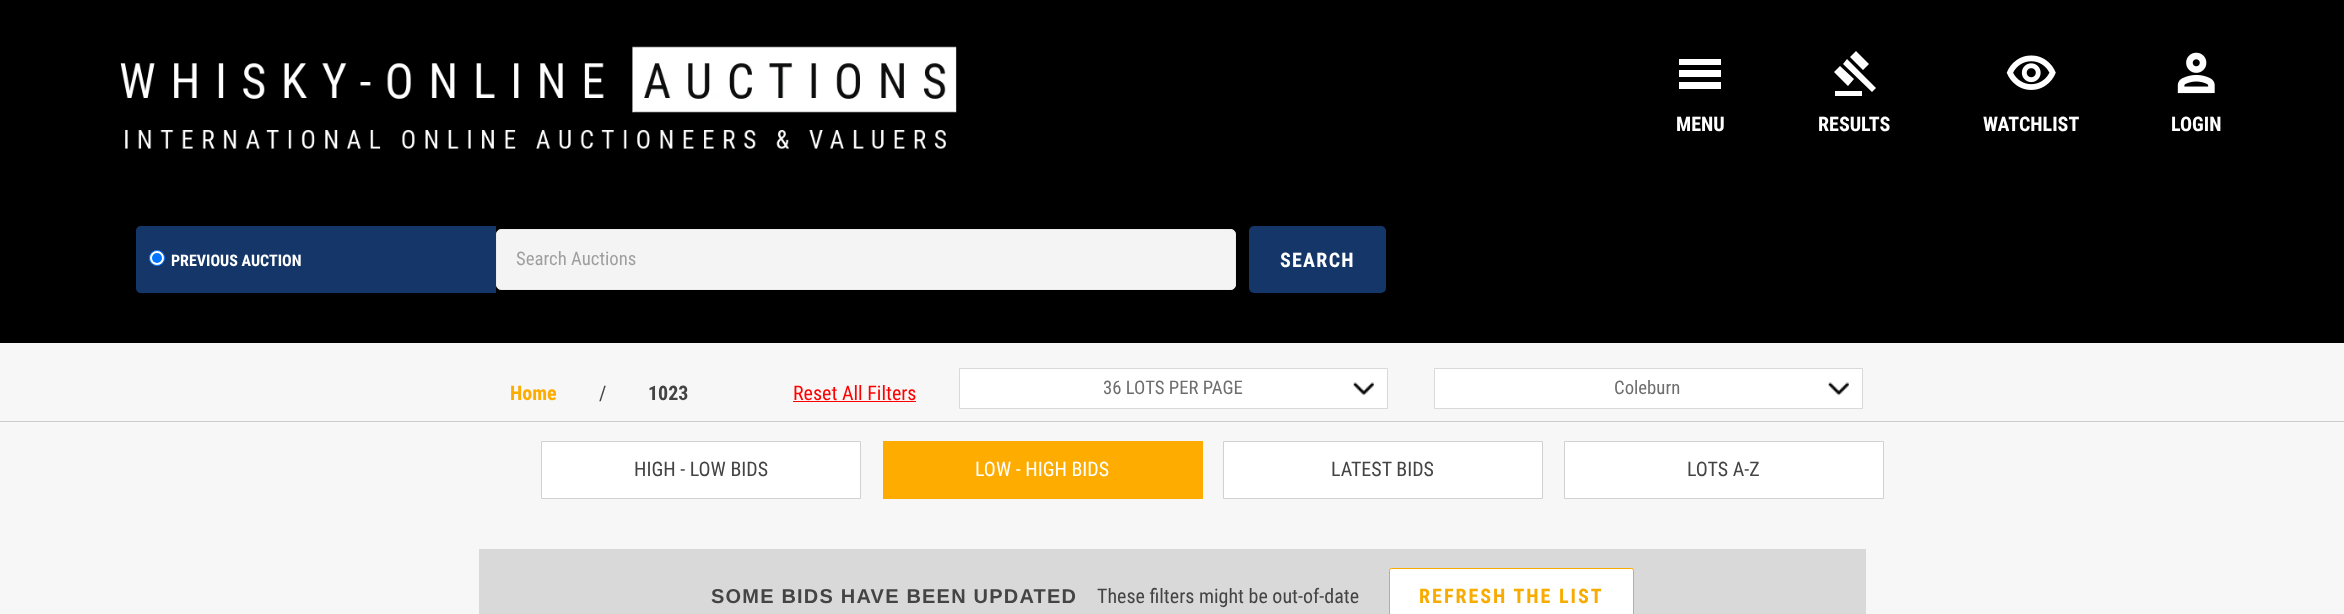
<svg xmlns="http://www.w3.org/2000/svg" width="2344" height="614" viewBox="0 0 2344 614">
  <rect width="100%" height="100%" fill="#f7f7f7"/>
  <path d="M0 0h2344v343H0z" fill="#000"/>
  <image x="120" y="46" width="837" height="103" href="img/1.png"/>
  <path d="M1679 89V82H1721V89ZM1679 77V70H1721V77ZM1679 65V59H1721V65Z" fill="#fff"/>
  <path d="M1835 96V91H1862V96ZM1848 86L1834 72L1840 66L1854 79ZM1863 70L1850 57L1856 51L1869 64ZM1872 92L1843 64L1847 59L1876 88Z" fill="#fff"/>
  <image x="2006" y="55" width="50" height="35" href="img/2.png"/>
  <image x="2177" y="52" width="38" height="42" href="img/3.png"/>
  <path d="M141 226H496V293H141C138 293 136 291 136 288V231C136 228 138 226 141 226Z" fill="#153669"/>
  <circle cx="157" cy="258" r="7.5" fill="#fff" stroke="#0075ff"/>
  <circle cx="157" cy="258" r="5" fill="#0075ff"/>
  <rect x="496.5" y="229.5" width="739" height="60" rx="4.5" fill="#f4f4f4" stroke="#ebebeb"/>
  <rect x="1249" y="226" width="137" height="67" rx="5" fill="#153669"/>
  <path d="M793 401h123v1H793z" fill="#f00"/>
  <path d="M960 369h427v39H960z" fill="#fff"/>
  <image x="1353" y="382" width="21" height="14" href="img/4.png"/>
  <path d="M959.5 368.5h428v40H959.5z" fill="none" stroke="#d9d9d9"/>
  <path d="M1435 369h427v39H1435z" fill="#fff"/>
  <image x="1828" y="382" width="21" height="14" href="img/4.png"/>
  <path d="M1434.5 368.5h428v40H1434.5z" fill="none" stroke="#d9d9d9"/>
  <path d="M0 421h2344v1H0z" fill="#ccc"/>
  <path d="M541.5 441.5h319v57H541.5z" fill="#fff" stroke="#d1d1d1"/>
  <path d="M883 441h320v58H883z" fill="#ffac00"/>
  <path d="M1223.5 441.5h319v57H1223.5z" fill="#fff" stroke="#d1d1d1"/>
  <path d="M1564.5 441.5h319v57H1564.5z" fill="#fff" stroke="#d1d1d1"/>
  <path d="M479 549h1387v65H479z" fill="#d9d9d9"/>
  <rect x="1389.5" y="568.5" width="244" height="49" rx="2" fill="#fff" stroke="#f8ac02"/>
  <g font-family="Roboto Condensed" font-size="20" font-weight="bold" fill="#fff">
    <text x="1676" y="131">MENU</text>
    <text x="1818" y="131">RESULTS</text>
    <text x="1983" y="131">WATCHLIST</text>
    <text x="2171" y="131">LOGIN</text>
  </g>
  <text x="171" y="266" font-family="Roboto Condensed" font-size="16" font-weight="bold" fill="#fff">PREVIOUS AUCTION</text>
  <text x="516" y="265" font-family="Roboto Condensed" font-size="18.75" fill="#9f9f9f">Search Auctions</text>
  <text x="1280" y="267" font-family="Roboto Condensed" font-size="20" font-weight="bold" letter-spacing="1.25" fill="#fff">SEARCH</text>
  <text x="510" y="400" font-family="Roboto Condensed" font-size="20" font-weight="bold" fill="#ffac00">Home</text>
  <text x="599" y="400" font-family="Roboto Condensed" font-size="20" fill="#444">/</text>
  <text x="648" y="400" font-family="Roboto Condensed" font-size="20" font-weight="bold" fill="#444">1023</text>
  <text x="793" y="400" font-family="Roboto Condensed" font-size="20" fill="#f00">Reset All Filters</text>
  <g font-family="Roboto Condensed" font-size="18.75" fill="#6d6d6d">
    <text x="1103" y="394">36 LOTS PER PAGE</text>
    <text x="1614" y="394">Coleburn</text>
  </g>
  <text x="634" y="476" font-family="Roboto Condensed" font-size="20" fill="#444">HIGH - LOW BIDS</text>
  <text x="975" y="476" font-family="Roboto Condensed" font-size="20" fill="#fff">LOW - HIGH BIDS</text>
  <g font-family="Roboto Condensed" font-size="20" fill="#444">
    <text x="1331" y="476">LATEST BIDS</text>
    <text x="1687" y="476">LOTS A-Z</text>
  </g>
  <text x="711" y="603" font-family="Liberation Sans" font-size="20" font-weight="bold" letter-spacing="1.2" fill="#444">SOME BIDS HAVE BEEN UPDATED</text>
  <text x="1097" y="603" font-family="Roboto Condensed" font-size="20" fill="#444">These filters might be out-of-date</text>
  <text x="1419" y="603" font-family="Roboto Condensed" font-size="20" font-weight="bold" letter-spacing="2" fill="#f8ac02">REFRESH THE LIST</text>
</svg>
